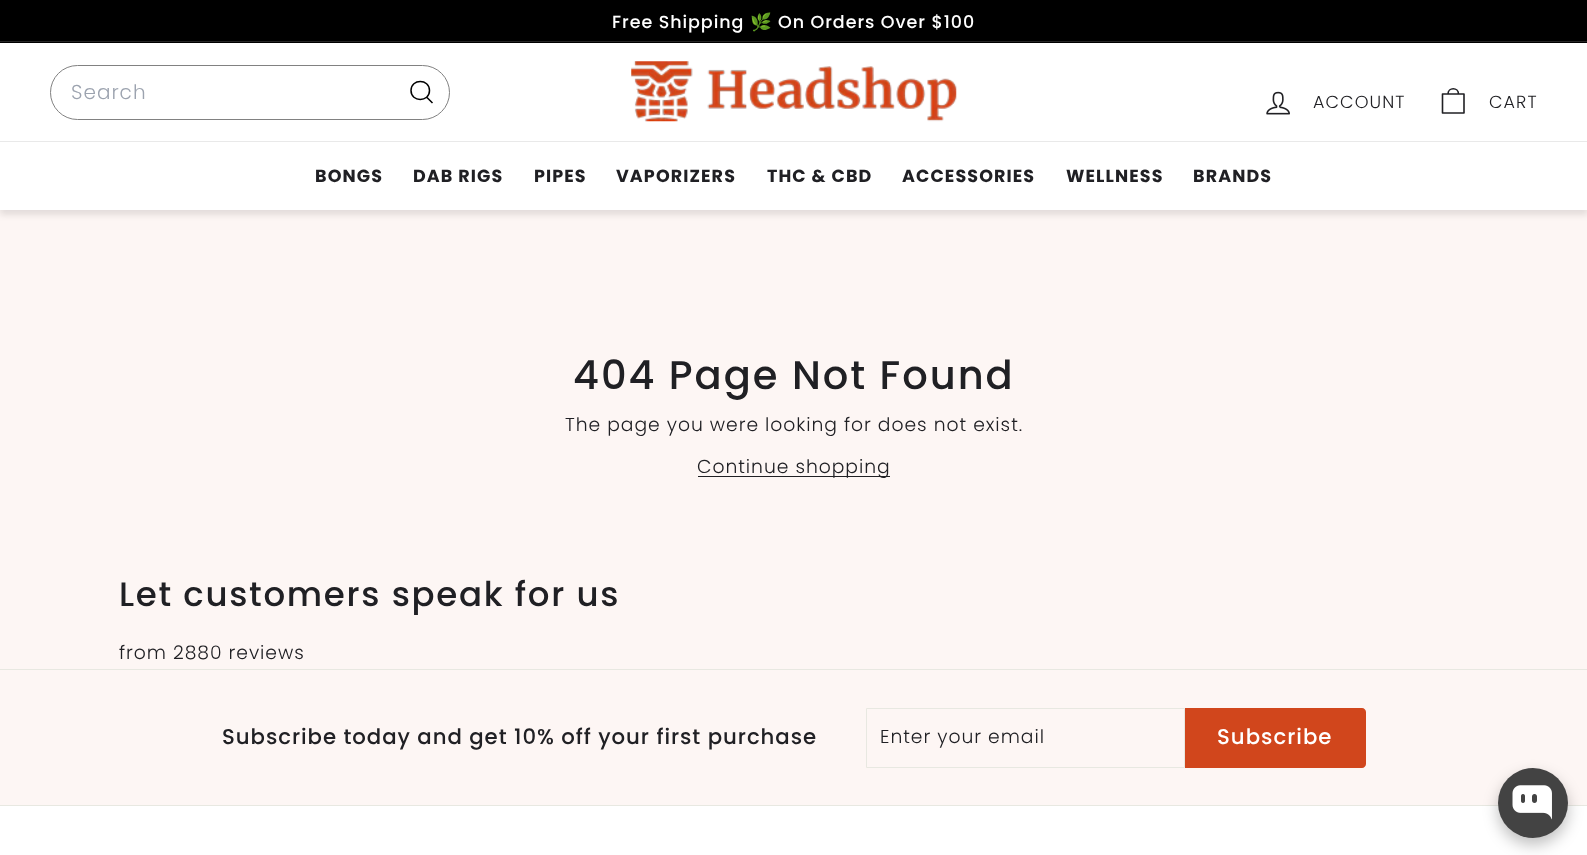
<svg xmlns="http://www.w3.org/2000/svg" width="1587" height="855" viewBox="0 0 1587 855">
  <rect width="100%" height="100%" fill="#fdf6f4"/>
  <path d="M0 0h1587v43H0z" fill="#000"/>
  <path d="M0 41h1587v1H0z" fill="#262626"/>
  <path d="M0 146h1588v69H0z" fill="#0000001a" filter="blur(3px)"/>
  <path d="M0 43h1587v98H0z" fill="#fff"/>
  <rect x="50.5" y="65.5" width="399" height="54" rx="27" fill="none" stroke="#818181"/>
  <path d="M429.5 90.5C429.5 102.5 411 102.5 411 90.5C411 78.5 429.5 78.5 429.5 90.5M432.5 103L426.5 97" fill="none" stroke="#000" stroke-width="1.5" stroke-linejoin="round"/>
  <image x="631" y="61" width="326" height="61" href="img/1.png"/>
  <image x="1266" y="91" width="24" height="24" href="img/2.png"/>
  <path d="M1448 94C1448 87 1458.5 87 1458.5 94M1442.5 94H1464V113H1442.5Z" fill="none" stroke="#202024" stroke-width="1.6" stroke-linejoin="round"/>
  <path d="M0 142h1587v68H0z" fill="#fff"/>
  <path d="M0 141h1587v1H0z" fill="#e9e9e9"/>
  <path d="M698 476h192v1H698z" fill="#202024"/>
  <path d="M0 669h1587v1H0z" fill="#e8e8e1"/>
  <path d="M866.5 708.5h318v59H866.5z" fill="none" stroke="#e8e8e1"/>
  <path d="M1185 708H1362C1364 708 1366 710 1366 712V764C1366 766 1364 768 1362 768H1185Z" fill="#d1461c"/>
  <path d="M0 806h1587v49H0z" fill="#fff"/>
  <path d="M0 805h1587v1H0z" fill="#e8e8e1"/>
  <rect x="1498" y="775" width="70" height="70" rx="35" fill="#00000040" filter="blur(7.5px)"/>
  <circle cx="1533" cy="803" r="35" fill="#434343"/>
  <image x="1512" y="785" width="40" height="35" href="img/3.png"/>
  <text x="612" y="28" font-family="Poppins" font-size="17.5" font-weight="500" letter-spacing="0.95" fill="#fff">Free Shipping</text>
  <text x="750" y="28" font-family="Noto Color Emoji" font-size="17.5" letter-spacing="0.95" fill="#fff">🌿</text>
  <text x="778" y="28" font-family="Poppins" font-size="17.5" font-weight="500" letter-spacing="0.95" fill="#fff">On Orders Over $100</text>
  <text x="71" y="99" font-family="Poppins" font-size="20" font-weight="300" letter-spacing="1" fill="#9ca3af">Search</text>
  <g font-family="Poppins" font-size="17.5" font-weight="300" letter-spacing="1.1" fill="#202024">
    <text x="1313" y="108">ACCOUNT</text>
    <text x="1489" y="108">CART</text>
  </g>
  <g font-family="Poppins" font-size="17.5" font-weight="bold" letter-spacing="1.1" fill="#202024">
    <text x="315" y="182">BONGS</text>
    <text x="413" y="182">DAB RIGS</text>
    <text x="534" y="182">PIPES</text>
    <text x="616" y="182">VAPORIZERS</text>
    <text x="767" y="182">THC &amp; CBD</text>
    <text x="902" y="182">ACCESSORIES</text>
    <text x="1066" y="182">WELLNESS</text>
    <text x="1193" y="182">BRANDS</text>
  </g>
  <text x="573" y="389" font-family="Poppins" font-size="40" font-weight="500" letter-spacing="2" fill="#202024">404 Page Not Found</text>
  <g font-family="Poppins" font-size="18.75" font-weight="300" letter-spacing="0.95" fill="#202024">
    <text x="565" y="431">The page you were looking for does not exist.</text>
    <text x="697" y="473">Continue shopping</text>
  </g>
  <text x="119" y="606" font-family="Poppins" font-size="34" font-weight="500" letter-spacing="1.7" fill="#202024">Let customers speak for us</text>
  <text x="119" y="659" font-family="Poppins" font-size="18.75" font-weight="300" letter-spacing="0.95" fill="#202024">from 2880 reviews</text>
  <text x="222" y="744" font-family="Poppins" font-size="21.25" font-weight="500" letter-spacing="0.95" fill="#202024">Subscribe today and get 10% off your first purchase</text>
  <text x="880" y="743" font-family="Poppins" font-size="18.75" font-weight="300" letter-spacing="0.95" fill="#202024">Enter your email</text>
  <text x="1217" y="744" font-family="Poppins" font-size="21.25" font-weight="500" letter-spacing="1" fill="#fff">Subscribe</text>
</svg>
